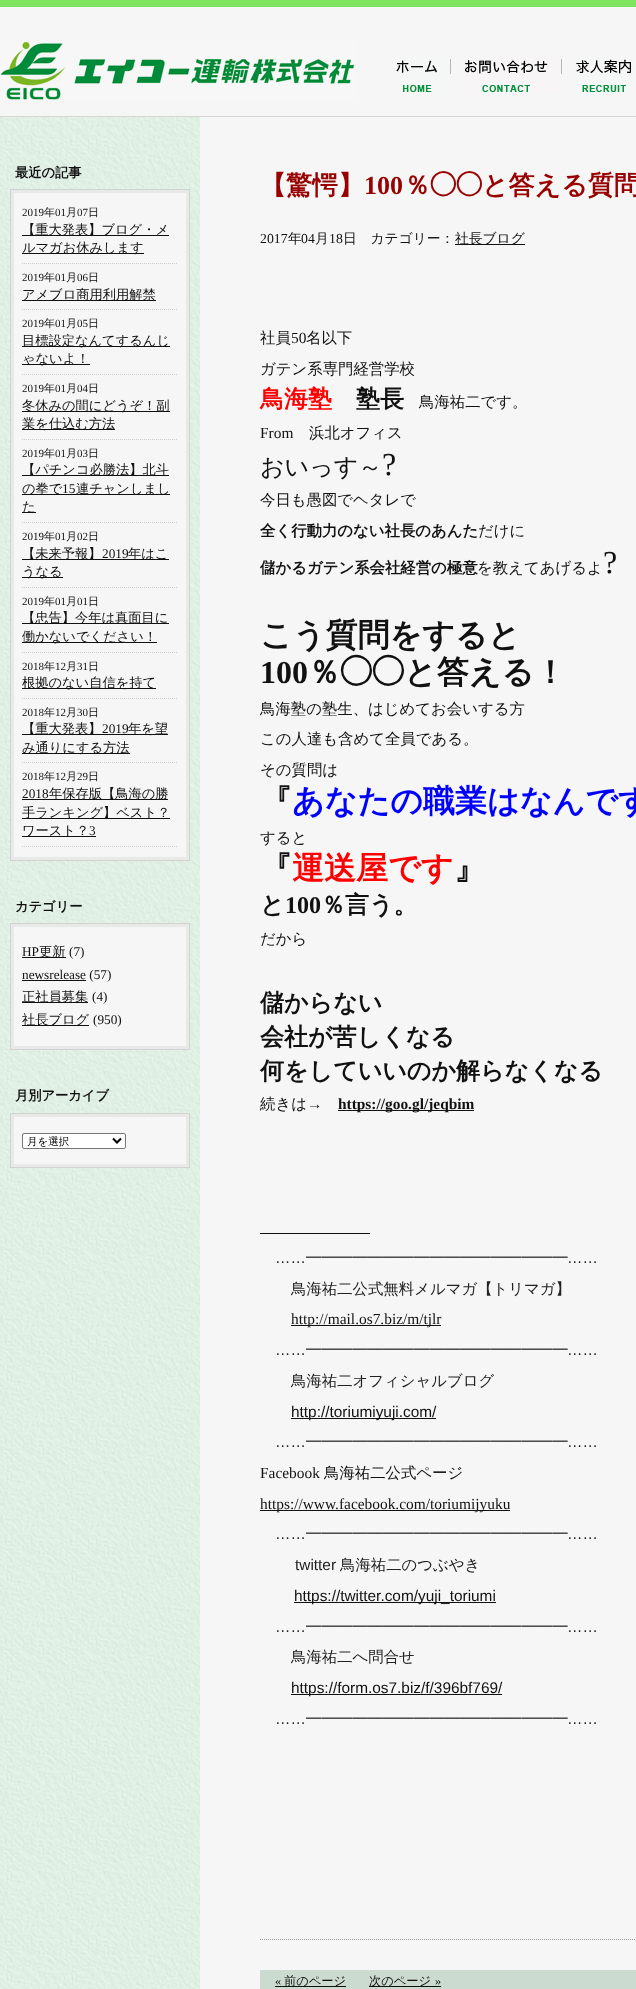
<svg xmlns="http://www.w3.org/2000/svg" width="636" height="1989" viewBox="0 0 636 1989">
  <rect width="100%" height="100%" fill="#f6f6f6"/>
  <path d="M0 0h636v7H0z" fill="#81e460"/>
  <path d="M0 116h636v1H0z" fill="#d6d6d6"/>
  <image x="0" y="41" width="356" height="59" href="img/1.png"/>
  <image x="396" y="59" width="55" height="35" href="img/2.png"/>
  <image x="465" y="59" width="97" height="33" href="img/3.png"/>
  <image x="576" y="59" width="55" height="36" href="img/4.png"/>
  <image x="0" y="117" width="200" height="1872" href="img/5.png"/>
  <image x="10" y="189" width="180" height="658" href="img/6.png"/>
  <path d="M22 263.5H178" fill="none" stroke="#ccc" stroke-dasharray="1 1"/>
  <path d="M22 235h147v1H22z" fill="#111"/>
  <path d="M22 253h122v1H22z" fill="#111"/>
  <path d="M22 309.5H178" fill="none" stroke="#ccc" stroke-dasharray="1 1"/>
  <path d="M22 300h134v1H22z" fill="#111"/>
  <path d="M22 374.5H178" fill="none" stroke="#ccc" stroke-dasharray="1 1"/>
  <path d="M22 346h148v1H22z" fill="#111"/>
  <path d="M22 364h68v1H22z" fill="#111"/>
  <path d="M22 439.5H178" fill="none" stroke="#ccc" stroke-dasharray="1 1"/>
  <path d="M22 411h148v1H22z" fill="#111"/>
  <path d="M22 429h93v1H22z" fill="#111"/>
  <path d="M22 522.5H178" fill="none" stroke="#ccc" stroke-dasharray="1 1"/>
  <path d="M22 475h147v1H22z" fill="#111"/>
  <path d="M22 494h148v1H22z" fill="#111"/>
  <path d="M22 512h14v1H22z" fill="#111"/>
  <path d="M22 587.5H178" fill="none" stroke="#ccc" stroke-dasharray="1 1"/>
  <path d="M22 559h147v1H22z" fill="#111"/>
  <path d="M22 577h41v1H22z" fill="#111"/>
  <path d="M22 652.5H178" fill="none" stroke="#ccc" stroke-dasharray="1 1"/>
  <path d="M22 623h147v1H22z" fill="#111"/>
  <path d="M22 642h135v1H22z" fill="#111"/>
  <path d="M22 698.5H178" fill="none" stroke="#ccc" stroke-dasharray="1 1"/>
  <path d="M22 688h134v1H22z" fill="#111"/>
  <path d="M22 762.5H178" fill="none" stroke="#ccc" stroke-dasharray="1 1"/>
  <path d="M22 734h146v1H22z" fill="#111"/>
  <path d="M22 753h108v1H22z" fill="#111"/>
  <path d="M22 846.5H178" fill="none" stroke="#ccc" stroke-dasharray="1 1"/>
  <path d="M22 799h146v1H22z" fill="#111"/>
  <path d="M22 818h148v1H22z" fill="#111"/>
  <path d="M22 836h74v1H22z" fill="#111"/>
  <image x="10" y="847" width="180" height="14" href="img/7.png"/>
  <image x="10" y="923" width="180" height="113" href="img/8.png"/>
  <path d="M22 957h44v1H22z" fill="#111"/>
  <path d="M22 980h64v1H22z" fill="#111"/>
  <path d="M22 1002h66v1H22z" fill="#111"/>
  <path d="M22 1025h67v1H22z" fill="#111"/>
  <image x="10" y="1036" width="180" height="14" href="img/7.png"/>
  <image x="10" y="1113" width="180" height="41" href="img/9.png"/>
  <rect x="22.5" y="1133.5" width="103" height="15" rx="1.5" fill="#fff" stroke="#767676"/>
  <path d="M113 1138.5L117 1142.5L121 1138.5" fill="none" stroke="#000" stroke-width="2"/>
  <image x="10" y="1154" width="180" height="14" href="img/7.png"/>
  <path d="M455 244h70v1H455z" fill="#111"/>
  <path d="M260 1939.5H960" fill="none" stroke="#999" stroke-dasharray="1 1"/>
  <path d="M338 1110h136v1H338z" fill="#111"/>
  <path d="M260 1233h110v1H260z" fill="#111"/>
  <path d="M291 1325h150v1H291z" fill="#111"/>
  <path d="M291 1418h145v1H291z" fill="#111"/>
  <path d="M260 1510h250v1H260z" fill="#111"/>
  <path d="M294 1602h202v1H294z" fill="#111"/>
  <path d="M291 1694h211v1H291z" fill="#111"/>
  <path d="M260 1970h376v19H260z" fill="#ccdbcf"/>
  <path d="M275 1986h71v1H275z" fill="#111"/>
  <path d="M369 1986h72v1H369z" fill="#111"/>
  <text x="15" y="177" font-family="WenQuanYi Zen Hei" font-size="13.25" font-weight="bold" fill="#111">最近の記事</text>
  <text x="22" y="216" font-family="Liberation Serif" font-size="11" fill="#111">2019</text>
  <text x="44" y="216" font-family="WenQuanYi Zen Hei" font-size="11" font-weight="500" fill="#111">年</text>
  <text x="55" y="216" font-family="Liberation Serif" font-size="11" fill="#111">01</text>
  <text x="66" y="216" font-family="WenQuanYi Zen Hei" font-size="11" font-weight="500" fill="#111">月</text>
  <text x="77" y="216" font-family="Liberation Serif" font-size="11" fill="#111">07</text>
  <text x="88" y="216" font-family="WenQuanYi Zen Hei" font-size="11" font-weight="500" fill="#111">日</text>
  <g font-family="WenQuanYi Zen Hei" font-size="13.25" font-weight="500" fill="#111">
    <text x="22" y="234">【重大発表】ブログ・メ</text>
    <text x="22" y="252">ルマガお休みします</text>
  </g>
  <text x="22" y="281" font-family="Liberation Serif" font-size="11" fill="#111">2019</text>
  <text x="44" y="281" font-family="WenQuanYi Zen Hei" font-size="11" font-weight="500" fill="#111">年</text>
  <text x="55" y="281" font-family="Liberation Serif" font-size="11" fill="#111">01</text>
  <text x="66" y="281" font-family="WenQuanYi Zen Hei" font-size="11" font-weight="500" fill="#111">月</text>
  <text x="77" y="281" font-family="Liberation Serif" font-size="11" fill="#111">06</text>
  <text x="88" y="281" font-family="WenQuanYi Zen Hei" font-size="11" font-weight="500" fill="#111">日</text>
  <text x="22" y="299" font-family="WenQuanYi Zen Hei" font-size="13.25" font-weight="500" fill="#111">アメブロ商用利用解禁</text>
  <text x="22" y="327" font-family="Liberation Serif" font-size="11" fill="#111">2019</text>
  <text x="44" y="327" font-family="WenQuanYi Zen Hei" font-size="11" font-weight="500" fill="#111">年</text>
  <text x="55" y="327" font-family="Liberation Serif" font-size="11" fill="#111">01</text>
  <text x="66" y="327" font-family="WenQuanYi Zen Hei" font-size="11" font-weight="500" fill="#111">月</text>
  <text x="77" y="327" font-family="Liberation Serif" font-size="11" fill="#111">05</text>
  <text x="88" y="327" font-family="WenQuanYi Zen Hei" font-size="11" font-weight="500" fill="#111">日</text>
  <g font-family="WenQuanYi Zen Hei" font-size="13.25" font-weight="500" fill="#111">
    <text x="22" y="345">目標設定なんてするんじ</text>
    <text x="22" y="363">ゃないよ！</text>
  </g>
  <text x="22" y="392" font-family="Liberation Serif" font-size="11" fill="#111">2019</text>
  <text x="44" y="392" font-family="WenQuanYi Zen Hei" font-size="11" font-weight="500" fill="#111">年</text>
  <text x="55" y="392" font-family="Liberation Serif" font-size="11" fill="#111">01</text>
  <text x="66" y="392" font-family="WenQuanYi Zen Hei" font-size="11" font-weight="500" fill="#111">月</text>
  <text x="77" y="392" font-family="Liberation Serif" font-size="11" fill="#111">04</text>
  <text x="88" y="392" font-family="WenQuanYi Zen Hei" font-size="11" font-weight="500" fill="#111">日</text>
  <g font-family="WenQuanYi Zen Hei" font-size="13.25" font-weight="500" fill="#111">
    <text x="22" y="410">冬休みの間にどうぞ！副</text>
    <text x="22" y="428">業を仕込む方法</text>
  </g>
  <text x="22" y="457" font-family="Liberation Serif" font-size="11" fill="#111">2019</text>
  <text x="44" y="457" font-family="WenQuanYi Zen Hei" font-size="11" font-weight="500" fill="#111">年</text>
  <text x="55" y="457" font-family="Liberation Serif" font-size="11" fill="#111">01</text>
  <text x="66" y="457" font-family="WenQuanYi Zen Hei" font-size="11" font-weight="500" fill="#111">月</text>
  <text x="77" y="457" font-family="Liberation Serif" font-size="11" fill="#111">03</text>
  <text x="88" y="457" font-family="WenQuanYi Zen Hei" font-size="11" font-weight="500" fill="#111">日</text>
  <g font-family="WenQuanYi Zen Hei" font-size="13.25" font-weight="500" fill="#111">
    <text x="22" y="474">【パチンコ必勝法】北斗</text>
    <text x="22" y="493">の拳で</text>
  </g>
  <text x="62" y="493" font-family="Liberation Serif" font-size="13.25" fill="#111">15</text>
  <g font-family="WenQuanYi Zen Hei" font-size="13.25" font-weight="500" fill="#111">
    <text x="76" y="493">連チャンしまし</text>
    <text x="22" y="511">た</text>
  </g>
  <text x="22" y="540" font-family="Liberation Serif" font-size="11" fill="#111">2019</text>
  <text x="44" y="540" font-family="WenQuanYi Zen Hei" font-size="11" font-weight="500" fill="#111">年</text>
  <text x="55" y="540" font-family="Liberation Serif" font-size="11" fill="#111">01</text>
  <text x="66" y="540" font-family="WenQuanYi Zen Hei" font-size="11" font-weight="500" fill="#111">月</text>
  <text x="77" y="540" font-family="Liberation Serif" font-size="11" fill="#111">02</text>
  <text x="88" y="540" font-family="WenQuanYi Zen Hei" font-size="11" font-weight="500" fill="#111">日</text>
  <text x="22" y="558" font-family="WenQuanYi Zen Hei" font-size="13.25" font-weight="500" fill="#111">【未来予報】</text>
  <text x="102" y="558" font-family="Liberation Serif" font-size="13.25" fill="#111">2019</text>
  <g font-family="WenQuanYi Zen Hei" font-size="13.25" font-weight="500" fill="#111">
    <text x="128" y="558">年はこ</text>
    <text x="22" y="576">うなる</text>
  </g>
  <text x="22" y="605" font-family="Liberation Serif" font-size="11" fill="#111">2019</text>
  <text x="44" y="605" font-family="WenQuanYi Zen Hei" font-size="11" font-weight="500" fill="#111">年</text>
  <text x="55" y="605" font-family="Liberation Serif" font-size="11" fill="#111">01</text>
  <text x="66" y="605" font-family="WenQuanYi Zen Hei" font-size="11" font-weight="500" fill="#111">月</text>
  <text x="77" y="605" font-family="Liberation Serif" font-size="11" fill="#111">01</text>
  <text x="88" y="605" font-family="WenQuanYi Zen Hei" font-size="11" font-weight="500" fill="#111">日</text>
  <g font-family="WenQuanYi Zen Hei" font-size="13.25" font-weight="500" fill="#111">
    <text x="22" y="622">【忠告】今年は真面目に</text>
    <text x="22" y="641">働かないでください！</text>
  </g>
  <text x="22" y="670" font-family="Liberation Serif" font-size="11" fill="#111">2018</text>
  <text x="44" y="670" font-family="WenQuanYi Zen Hei" font-size="11" font-weight="500" fill="#111">年</text>
  <text x="55" y="670" font-family="Liberation Serif" font-size="11" fill="#111">12</text>
  <text x="66" y="670" font-family="WenQuanYi Zen Hei" font-size="11" font-weight="500" fill="#111">月</text>
  <text x="77" y="670" font-family="Liberation Serif" font-size="11" fill="#111">31</text>
  <text x="88" y="670" font-family="WenQuanYi Zen Hei" font-size="11" font-weight="500" fill="#111">日</text>
  <text x="22" y="687" font-family="WenQuanYi Zen Hei" font-size="13.25" font-weight="500" fill="#111">根拠のない自信を持て</text>
  <text x="22" y="716" font-family="Liberation Serif" font-size="11" fill="#111">2018</text>
  <text x="44" y="716" font-family="WenQuanYi Zen Hei" font-size="11" font-weight="500" fill="#111">年</text>
  <text x="55" y="716" font-family="Liberation Serif" font-size="11" fill="#111">12</text>
  <text x="66" y="716" font-family="WenQuanYi Zen Hei" font-size="11" font-weight="500" fill="#111">月</text>
  <text x="77" y="716" font-family="Liberation Serif" font-size="11" fill="#111">30</text>
  <text x="88" y="716" font-family="WenQuanYi Zen Hei" font-size="11" font-weight="500" fill="#111">日</text>
  <text x="22" y="733" font-family="WenQuanYi Zen Hei" font-size="13.25" font-weight="500" fill="#111">【重大発表】</text>
  <text x="102" y="733" font-family="Liberation Serif" font-size="13.25" fill="#111">2019</text>
  <g font-family="WenQuanYi Zen Hei" font-size="13.25" font-weight="500" fill="#111">
    <text x="128" y="733">年を望</text>
    <text x="22" y="752">み通りにする方法</text>
  </g>
  <text x="22" y="780" font-family="Liberation Serif" font-size="11" fill="#111">2018</text>
  <text x="44" y="780" font-family="WenQuanYi Zen Hei" font-size="11" font-weight="500" fill="#111">年</text>
  <text x="55" y="780" font-family="Liberation Serif" font-size="11" fill="#111">12</text>
  <text x="66" y="780" font-family="WenQuanYi Zen Hei" font-size="11" font-weight="500" fill="#111">月</text>
  <text x="77" y="780" font-family="Liberation Serif" font-size="11" fill="#111">29</text>
  <text x="88" y="780" font-family="WenQuanYi Zen Hei" font-size="11" font-weight="500" fill="#111">日</text>
  <text x="22" y="798" font-family="Liberation Serif" font-size="13.25" fill="#111">2018</text>
  <g font-family="WenQuanYi Zen Hei" font-size="13.25" font-weight="500" fill="#111">
    <text x="49" y="798">年保存版【鳥海の勝</text>
    <text x="22" y="817">手ランキング】ベスト？</text>
    <text x="22" y="835">ワースト？</text>
  </g>
  <text x="89" y="835" font-family="Liberation Serif" font-size="13.25" fill="#111">3</text>
  <text x="15" y="911" font-family="WenQuanYi Zen Hei" font-size="13.25" font-weight="bold" fill="#111">カテゴリー</text>
  <text x="22" y="956" font-family="Liberation Serif" font-size="13.25" fill="#111">HP</text>
  <text x="39" y="956" font-family="WenQuanYi Zen Hei" font-size="13.25" font-weight="500" fill="#111">更新</text>
  <g font-family="Liberation Serif" font-size="13.25" fill="#111">
    <text x="69" y="956">(7)</text>
    <text x="22" y="979">newsrelease (57)</text>
  </g>
  <text x="22" y="1001" font-family="WenQuanYi Zen Hei" font-size="13.25" font-weight="500" fill="#111">正社員募集</text>
  <text x="92" y="1001" font-family="Liberation Serif" font-size="13.25" fill="#111">(4)</text>
  <text x="22" y="1024" font-family="WenQuanYi Zen Hei" font-size="13.25" font-weight="500" fill="#111">社長ブログ</text>
  <text x="93" y="1024" font-family="Liberation Serif" font-size="13.25" fill="#111">(950)</text>
  <text x="15" y="1100" font-family="WenQuanYi Zen Hei" font-size="13.25" font-weight="bold" fill="#111">月別アーカイブ</text>
  <text x="27" y="1145" font-family="WenQuanYi Zen Hei" font-size="10.5" font-weight="500" fill="#000">月を選択</text>
  <text x="260" y="194" font-family="WenQuanYi Zen Hei" font-size="26" font-weight="bold" fill="#900">【驚愕】</text>
  <text x="364" y="194" font-family="Liberation Serif" font-size="26" font-weight="bold" fill="#900">100</text>
  <text x="404" y="194" font-family="WenQuanYi Zen Hei" font-size="26" font-weight="bold" fill="#900">％</text>
  <text x="430" y="194" font-family="IPAPGothic" font-size="26" font-weight="bold" fill="#900">◯◯</text>
  <text x="482" y="194" font-family="WenQuanYi Zen Hei" font-size="26" font-weight="bold" fill="#900">と答える質問</text>
  <text x="260" y="243" font-family="Liberation Serif" font-size="13.75" fill="#111">2017</text>
  <text x="288" y="243" font-family="WenQuanYi Zen Hei" font-size="13.75" font-weight="500" fill="#111">年</text>
  <text x="301" y="243" font-family="Liberation Serif" font-size="13.75" fill="#111">04</text>
  <text x="315" y="243" font-family="WenQuanYi Zen Hei" font-size="13.75" font-weight="500" fill="#111">月</text>
  <text x="329" y="243" font-family="Liberation Serif" font-size="13.75" fill="#111">18</text>
  <g font-family="WenQuanYi Zen Hei" font-size="13.75" font-weight="500" fill="#111">
    <text x="343" y="243">日　カテゴリー：</text>
    <text x="455" y="243">社長ブログ</text>
  </g>
  <text x="260" y="343" font-family="WenQuanYi Zen Hei" font-size="15.4" font-weight="500" fill="#111">社員</text>
  <text x="291" y="343" font-family="Liberation Serif" font-size="15.4" fill="#111">50</text>
  <g font-family="WenQuanYi Zen Hei" font-size="15.4" font-weight="500" fill="#111">
    <text x="306" y="343">名以下</text>
    <text x="260" y="374">ガテン系専門経営学校</text>
  </g>
  <text x="260" y="407" font-family="WenQuanYi Zen Hei" font-size="24" font-weight="bold" fill="#f00">鳥海塾</text>
  <text x="356" y="407" font-family="WenQuanYi Zen Hei" font-size="24" font-weight="bold" fill="#111">塾長</text>
  <text x="419" y="407" font-family="WenQuanYi Zen Hei" font-size="15.4" font-weight="500" fill="#111">鳥海祐二です。</text>
  <text x="260" y="438" font-family="Liberation Serif" font-size="15.4" fill="#111">From</text>
  <text x="309" y="438" font-family="WenQuanYi Zen Hei" font-size="15.4" font-weight="500" fill="#111">浜北オフィス</text>
  <text x="260" y="475" font-family="WenQuanYi Zen Hei" font-size="24" font-weight="500" fill="#111">おいっす～</text>
  <text x="382" y="475" font-family="Liberation Serif" font-size="32" fill="#111">?</text>
  <text x="260" y="505" font-family="WenQuanYi Zen Hei" font-size="15.4" font-weight="500" fill="#111">今日も愚図でヘタレで</text>
  <text x="260" y="536" font-family="WenQuanYi Zen Hei" font-size="15.4" font-weight="bold" fill="#111">全く行動力のない社長のあんた</text>
  <text x="478" y="536" font-family="WenQuanYi Zen Hei" font-size="15.4" font-weight="500" fill="#111">だけに</text>
  <text x="260" y="573" font-family="WenQuanYi Zen Hei" font-size="15.4" font-weight="bold" fill="#111">儲かるガテン系会社経営の極意</text>
  <text x="477" y="573" font-family="WenQuanYi Zen Hei" font-size="15.4" font-weight="500" fill="#111">を教えてあげるよ</text>
  <text x="603" y="573" font-family="Liberation Serif" font-size="32" fill="#111">?</text>
  <text x="260" y="646" font-family="WenQuanYi Zen Hei" font-size="32" font-weight="bold" fill="#111">こう質問をすると</text>
  <text x="260" y="683" font-family="Liberation Serif" font-size="32" font-weight="bold" fill="#111">100</text>
  <text x="308" y="683" font-family="WenQuanYi Zen Hei" font-size="32" font-weight="bold" fill="#111">％</text>
  <text x="340" y="683" font-family="IPAPGothic" font-size="32" font-weight="bold" fill="#111">◯◯</text>
  <text x="404" y="683" font-family="WenQuanYi Zen Hei" font-size="32" font-weight="bold" fill="#111">と答える！</text>
  <g font-family="WenQuanYi Zen Hei" font-size="15.4" font-weight="500" fill="#111">
    <text x="260" y="714">鳥海塾の塾生、はじめてお会いする方</text>
    <text x="260" y="744">この人達も含めて全員である。</text>
    <text x="260" y="775">その質問は</text>
  </g>
  <text x="260" y="812" font-family="WenQuanYi Zen Hei" font-size="32" font-weight="bold" fill="#111">『</text>
  <text x="292" y="812" font-family="WenQuanYi Zen Hei" font-size="32" font-weight="bold" fill="#00f">あなたの職業はなんです</text>
  <text x="260" y="843" font-family="WenQuanYi Zen Hei" font-size="15.4" font-weight="500" fill="#111">すると</text>
  <text x="260" y="879" font-family="WenQuanYi Zen Hei" font-size="32" font-weight="bold" fill="#111">『</text>
  <text x="292" y="879" font-family="WenQuanYi Zen Hei" font-size="32" font-weight="bold" fill="#f00">運送屋です</text>
  <text x="454" y="879" font-family="WenQuanYi Zen Hei" font-size="32" font-weight="bold" fill="#111">』</text>
  <text x="260" y="913" font-family="WenQuanYi Zen Hei" font-size="24" font-weight="bold" fill="#111">と</text>
  <text x="285" y="913" font-family="Liberation Serif" font-size="24" font-weight="bold" fill="#111">100</text>
  <text x="321" y="913" font-family="WenQuanYi Zen Hei" font-size="24" font-weight="bold" fill="#111">％言う。</text>
  <text x="260" y="944" font-family="WenQuanYi Zen Hei" font-size="15.4" font-weight="500" fill="#111">だから</text>
  <g font-family="WenQuanYi Zen Hei" font-size="24" font-weight="bold" fill="#111">
    <text x="260" y="1011">儲からない</text>
    <text x="260" y="1045">会社が苦しくなる</text>
    <text x="260" y="1079">何をしていいのか解らなくなる</text>
  </g>
  <text x="260" y="1109" font-family="WenQuanYi Zen Hei" font-size="15.4" font-weight="500" fill="#111">続きは</text>
  <text x="307" y="1109" font-family="Liberation Serif" font-size="15.4" fill="#111">→</text>
  <text x="338" y="1109" font-family="Liberation Serif" font-size="15.4" font-weight="bold" fill="#111">https://goo.gl/jeqbim</text>
  <text x="306" y="1263" font-family="WenQuanYi Zen Hei" font-size="15.4" font-weight="500" fill="#222">━━━━━━━━━━━━━━━━━</text>
  <g font-family="Liberation Sans" font-size="15.4" fill="#222">
    <text x="275" y="1263">……</text>
    <text x="567" y="1263">……</text>
  </g>
  <text x="291" y="1294" font-family="WenQuanYi Zen Hei" font-size="15.4" font-weight="500" fill="#222">鳥海祐二公式無料メルマガ【トリマガ】</text>
  <text x="291" y="1324" font-family="Liberation Serif" font-size="15.4" fill="#111">http://mail.os7.biz/m/tjlr</text>
  <text x="306" y="1355" font-family="WenQuanYi Zen Hei" font-size="15.4" font-weight="500" fill="#222">━━━━━━━━━━━━━━━━━</text>
  <g font-family="Liberation Sans" font-size="15.4" fill="#222">
    <text x="275" y="1355">……</text>
    <text x="567" y="1355">……</text>
  </g>
  <text x="291" y="1386" font-family="WenQuanYi Zen Hei" font-size="15.4" font-weight="500" fill="#222">鳥海祐二オフィシャルブログ</text>
  <text x="291" y="1417" font-family="Liberation Sans" font-size="15.4" fill="#111">http://toriumiyuji.com/</text>
  <text x="306" y="1447" font-family="WenQuanYi Zen Hei" font-size="15.4" font-weight="500" fill="#222">━━━━━━━━━━━━━━━━━</text>
  <g font-family="Liberation Sans" font-size="15.4" fill="#222">
    <text x="275" y="1447">……</text>
    <text x="567" y="1447">……</text>
  </g>
  <text x="260" y="1478" font-family="Liberation Serif" font-size="15.4" fill="#111">Facebook</text>
  <text x="324" y="1478" font-family="WenQuanYi Zen Hei" font-size="15.4" font-weight="500" fill="#111">鳥海祐二公式ページ</text>
  <text x="260" y="1509" font-family="Liberation Serif" font-size="15.4" fill="#111">https://www.facebook.com/toriumijyuku</text>
  <text x="306" y="1539" font-family="WenQuanYi Zen Hei" font-size="15.4" font-weight="500" fill="#222">━━━━━━━━━━━━━━━━━</text>
  <g font-family="Liberation Sans" font-size="15.4" fill="#222">
    <text x="275" y="1539">……</text>
    <text x="567" y="1539">……</text>
    <text x="295" y="1570">twitter</text>
  </g>
  <text x="340" y="1570" font-family="WenQuanYi Zen Hei" font-size="15.4" font-weight="500" fill="#222">鳥海祐二のつぶやき</text>
  <text x="294" y="1601" font-family="Liberation Sans" font-size="15.4" fill="#111">https://twitter.com/yuji_toriumi</text>
  <text x="306" y="1632" font-family="WenQuanYi Zen Hei" font-size="15.4" font-weight="500" fill="#222">━━━━━━━━━━━━━━━━━</text>
  <g font-family="Liberation Sans" font-size="15.4" fill="#222">
    <text x="275" y="1632">……</text>
    <text x="567" y="1632">……</text>
  </g>
  <text x="291" y="1662" font-family="WenQuanYi Zen Hei" font-size="15.4" font-weight="500" fill="#222">鳥海祐二へ問合せ</text>
  <text x="291" y="1693" font-family="Liberation Sans" font-size="15.4" fill="#111">https://form.os7.biz/f/396bf769/</text>
  <text x="306" y="1724" font-family="WenQuanYi Zen Hei" font-size="15.4" font-weight="500" fill="#222">━━━━━━━━━━━━━━━━━</text>
  <g font-family="Liberation Sans" font-size="15.4" fill="#222">
    <text x="275" y="1724">……</text>
    <text x="567" y="1724">……</text>
  </g>
  <text x="275" y="1985" font-family="Liberation Serif" font-size="12.25" fill="#111">«</text>
  <g font-family="WenQuanYi Zen Hei" font-size="12.25" font-weight="500" fill="#111">
    <text x="284" y="1985">前のページ</text>
    <text x="369" y="1985">次のページ</text>
  </g>
  <text x="435" y="1985" font-family="Liberation Serif" font-size="12.25" fill="#111">»</text>
</svg>
